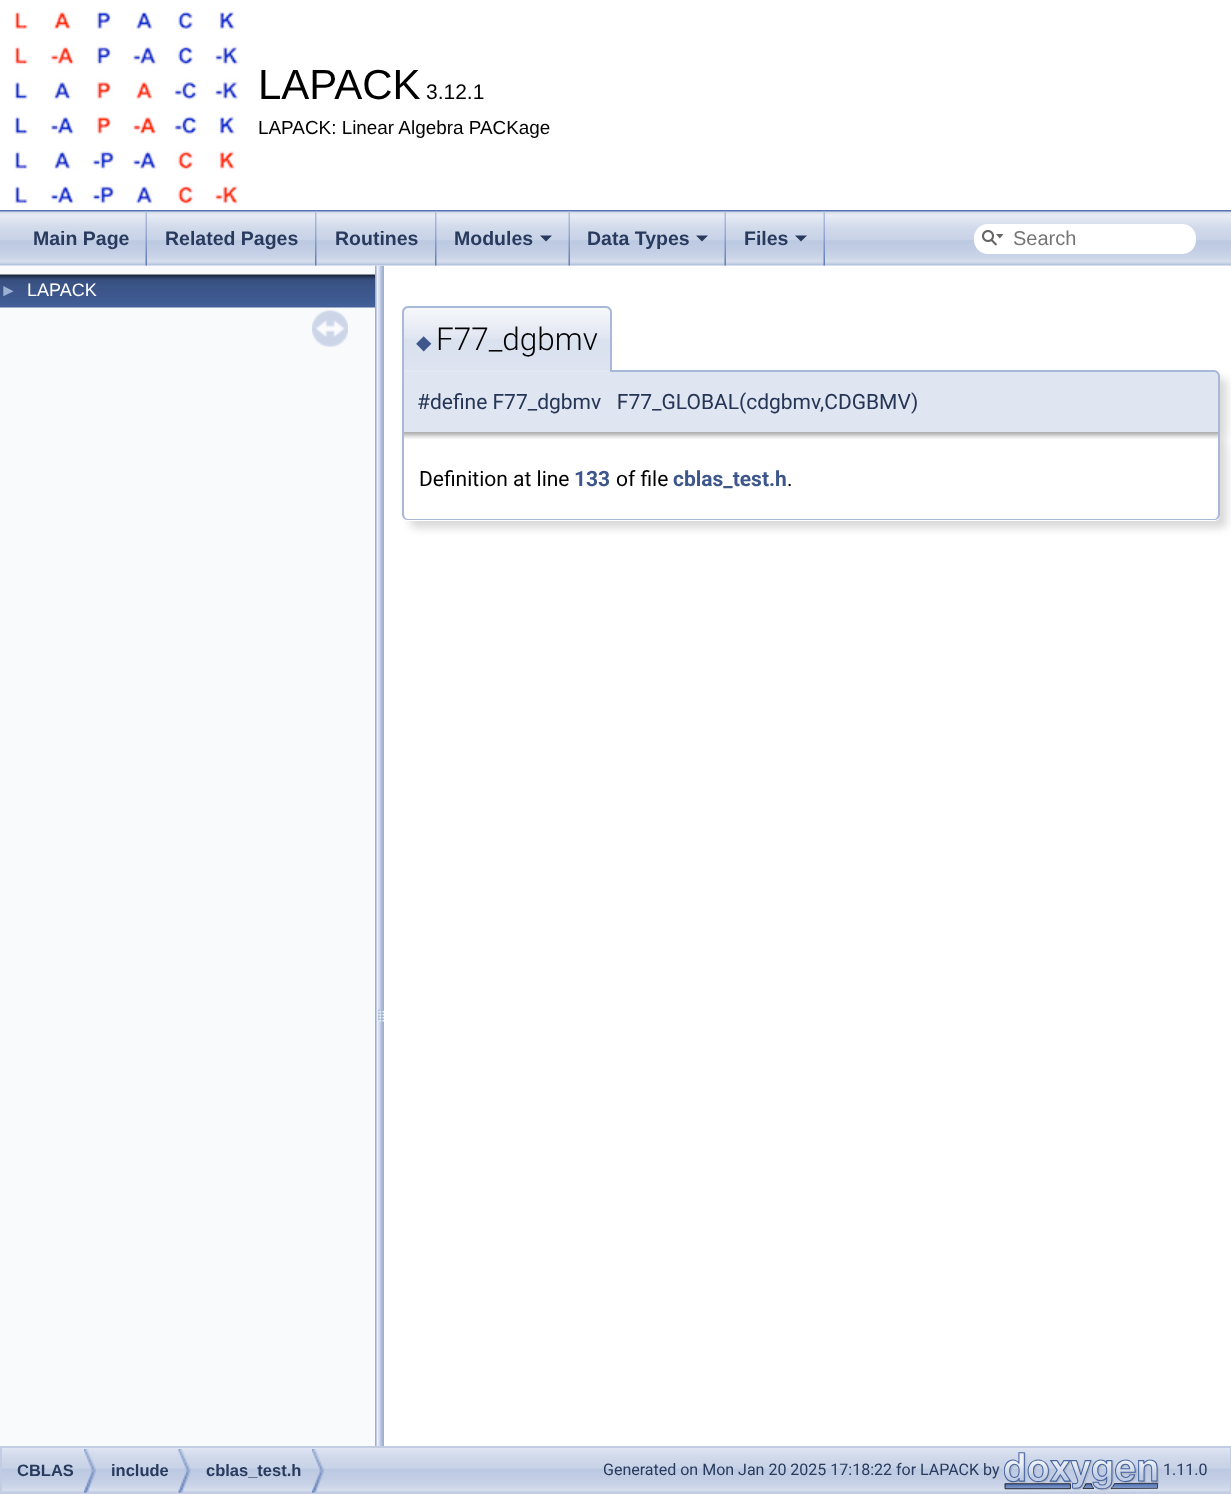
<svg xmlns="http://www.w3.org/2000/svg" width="1231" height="1494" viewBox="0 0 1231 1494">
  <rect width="100%" height="100%" fill="#fff"/>
  <path d="M0 210h1231v2H0z" fill="#5373b4"/>
  <image x="14" y="11" width="225" height="194" href="img/1.png"/>
  <image x="375" y="265" width="9" height="1181" href="img/8.png"/>
  <image x="0" y="211" width="1231" height="55" href="img/2.png"/>
  <image x="145" y="211" width="2" height="55" href="img/3.png"/>
  <image x="315" y="211" width="2" height="55" href="img/4.png"/>
  <image x="435" y="211" width="2" height="55" href="img/4.png"/>
  <image x="568" y="211" width="2" height="55" href="img/3.png"/>
  <path d="M540 235.5H552L546 241.5Z" fill="#283a5d"/>
  <image x="724" y="211" width="2" height="55" href="img/3.png"/>
  <path d="M696 235.5H708L702 241.5Z" fill="#283a5d"/>
  <image x="823" y="211" width="2" height="55" href="img/3.png"/>
  <path d="M795 235.5H807L801 241.5Z" fill="#283a5d"/>
  <rect x="974" y="224" width="222" height="30" rx="14" fill="#fff"/>
  <image x="982" y="230" width="22" height="16" href="img/5.png"/>
  <path d="M0 266h375v1180H0z" fill="#f9fafc"/>
  <image x="0" y="274" width="375" height="34" href="img/6.png"/>
  <image x="312" y="310" width="36" height="37" href="img/7.png"/>
  <rect x="410" y="378" width="817" height="62" rx="6" fill="#00000026" filter="blur(4px)"/>
  <path d="M402 371H1214C1217.5 371 1220 373.5 1220 377V432H402Z" fill="#dfe5f1"/>
  <path d="M402 370H1214C1217 370 1220 373 1220 376V432H402ZM404 372H1214C1216 372 1218 374 1218 376V432H404Z" fill="#a8b8d9" fill-rule="evenodd"/>
  <path d="M408 306H606C609.5 306 612 308.5 612 312V372H402V312C402 308.5 404.5 306 408 306Z" fill="#e2e8f2"/>
  <image x="402" y="307" width="210" height="63" href="img/9.png"/>
  <path d="M408 306H606C609 306 612 309 612 312V372H402V312C402 309 405 306 408 306ZM408 308H606C608 308 610 310 610 312V372H404V312C404 310 406 308 408 308Z" fill="#a8b8d9" fill-rule="evenodd"/>
  <rect x="410" y="440" width="817" height="88" rx="6" fill="#00000026" filter="blur(4px)"/>
  <path d="M402 432H1220V515C1220 518.5 1217.5 521 1214 521H408C404.5 521 402 518.5 402 515Z" fill="#fff"/>
  <image x="404" y="432" width="814" height="7" href="img/10.png"/>
  <path d="M402 432H1220V514C1220 518 1217 520 1214 520H408C405 520 402 518 402 514ZM404 432H1218V514C1218 517 1216 519 1214 519H408C406 519 404 517 404 514Z" fill="#a8b8d9" fill-rule="evenodd"/>
  <image x="2" y="1448" width="1228" height="44" href="img/11.png"/>
  <path d="M1 1447h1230v46H1z" fill="none" stroke="#c2cde4" stroke-width="2"/>
  <image x="84" y="1449" width="12" height="44" href="img/12.png"/>
  <image x="178" y="1449" width="13" height="44" href="img/13.png"/>
  <image x="312" y="1449" width="12" height="44" href="img/14.png"/>
  <image x="1004" y="1452" width="155" height="39" href="img/15.png"/>
  <text x="258" y="99" font-family="Liberation Sans" font-size="42" fill="#000">LAPACK</text>
  <text x="426" y="99" font-family="Liberation Sans" font-size="21" fill="#000">3.12.1</text>
  <text x="258" y="134" font-family="Liberation Sans" font-size="18.9" fill="#000">LAPACK: Linear Algebra PACKage</text>
  <g font-family="Liberation Sans" font-size="19.5" font-weight="bold" fill="#283a5d">
    <text x="33" y="245">Main Page</text>
    <text x="165" y="245">Related Pages</text>
    <text x="335" y="245">Routines</text>
    <text x="454" y="245">Modules</text>
    <text x="587" y="245">Data Types</text>
    <text x="744" y="245">Files</text>
  </g>
  <text x="1013" y="245" font-family="Liberation Sans" font-size="20" fill="#757575">Search</text>
  <text x="0" y="296" font-family="Liberation Sans" font-size="17" fill="#9cafd4">►</text>
  <text x="27" y="296" font-family="Liberation Sans" font-size="18" fill="#fff">LAPACK</text>
  <text x="416" y="349" font-family="DejaVu Sans" font-size="20" fill="#3d578c">◆</text>
  <text x="436" y="350" font-family="Roboto" font-size="31.5" font-weight="300" fill="#000">F77_dgbmv</text>
  <text x="417" y="409" font-family="Roboto" font-size="21" fill="#253555" xml:space="preserve">#define F77_dgbmv   F77_GLOBAL(cdgbmv,CDGBMV)</text>
  <text x="419" y="486" font-family="Roboto" font-size="21" fill="#000">Definition at line</text>
  <text x="574" y="486" font-family="Roboto" font-size="21" font-weight="bold" fill="#3d578c">133</text>
  <text x="616" y="486" font-family="Roboto" font-size="21" fill="#000">of file</text>
  <text x="673" y="486" font-family="Roboto" font-size="21" font-weight="bold" fill="#3d578c">cblas_test.h</text>
  <text x="787" y="486" font-family="Roboto" font-size="21" fill="#000">.</text>
  <g font-family="Liberation Sans" font-size="16.5" font-weight="bold" fill="#283a5d">
    <text x="17" y="1476">CBLAS</text>
    <text x="111" y="1476">include</text>
    <text x="206" y="1476">cblas_test.h</text>
  </g>
  <g font-family="Roboto" font-size="16" fill="#283a5d">
    <text x="603" y="1475">Generated on Mon Jan 20 2025 17:18:22 for LAPACK by</text>
    <text x="1163" y="1475">1.11.0</text>
  </g>
</svg>
